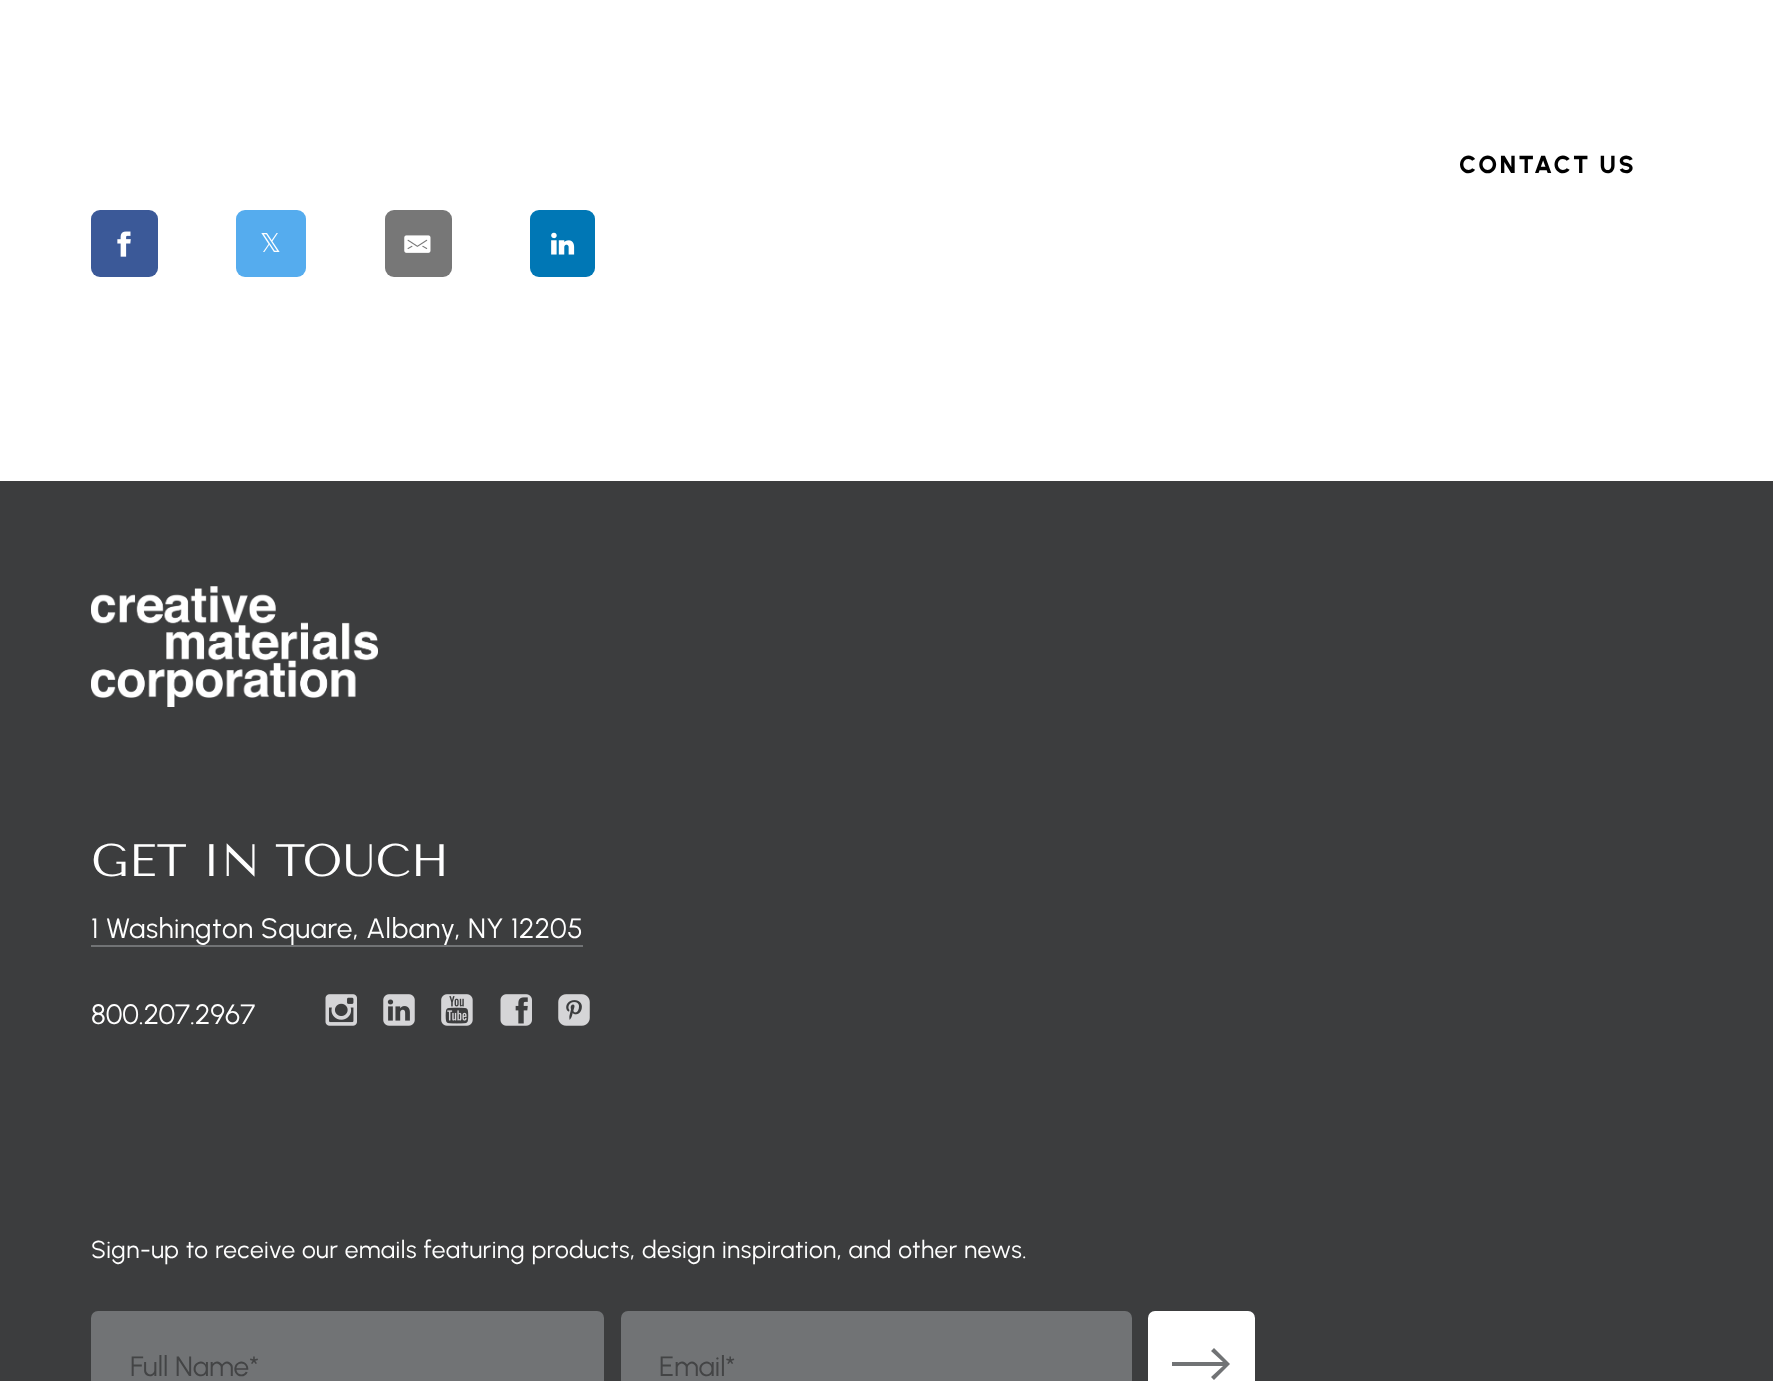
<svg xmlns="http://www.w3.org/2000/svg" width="1773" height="1381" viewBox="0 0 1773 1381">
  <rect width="100%" height="100%" fill="#fff"/>
  <rect x="91" y="210" width="67" height="67" rx="9" fill="#3b5998"/>
  <image x="117" y="231" width="14" height="26" href="img/1.png"/>
  <rect x="236" y="210" width="70" height="67" rx="9" fill="#55acee"/>
  <rect x="385" y="210" width="67" height="67" rx="9" fill="#777"/>
  <image x="404" y="235" width="27" height="18" href="img/2.png"/>
  <rect x="530" y="210" width="65" height="67" rx="9" fill="#0077b5"/>
  <image x="551" y="232" width="24" height="23" href="img/3.png"/>
  <path d="M0 481h1773v900H0z" fill="#3c3d3e"/>
  <image x="91" y="586" width="287" height="121" href="img/4.png"/>
  <path d="M91 945h492v2H91z" fill="#717375"/>
  <image x="325" y="994" width="32" height="32" href="img/5.png"/>
  <image x="383" y="994" width="32" height="32" href="img/6.png"/>
  <image x="441" y="994" width="32" height="32" href="img/7.png"/>
  <image x="500" y="994" width="32" height="32" href="img/8.png"/>
  <image x="558" y="994" width="32" height="32" href="img/9.png"/>
  <rect x="91" y="1311" width="513" height="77" rx="7" fill="#717375"/>
  <rect x="621" y="1311" width="511" height="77" rx="7" fill="#717375"/>
  <rect x="1148" y="1311" width="107" height="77" rx="7" fill="#fff"/>
  <path d="M1214 1348L1211 1351L1223 1362H1172V1366H1223L1211 1377L1214 1380L1230 1364Z" fill="#717375"/>
  <text x="1459" y="173" font-family="Urbanist" font-size="24.5" font-weight="800" letter-spacing="2.5" fill="#000">CONTACT US</text>
  <text x="260" y="252" font-family="DejaVu Sans" font-size="26" letter-spacing="1" fill="#fff">𝕏</text>
  <g font-family="Tenor Sans" font-size="45.5" letter-spacing="0.5" fill="#fff">
    <text x="91" y="876">GET</text>
    <text x="202" y="876">IN</text>
    <text x="275" y="876">TOUCH</text>
  </g>
  <text x="91" y="938" font-family="Urbanist" font-size="28" letter-spacing="0.55" fill="#fff">1 Washington Square, Albany, NY 12205</text>
  <text x="91" y="1024" font-family="Urbanist" font-size="28" fill="#fff">800.207.2967</text>
  <text x="91" y="1258" font-family="Urbanist" font-size="24.5" letter-spacing="0.5" fill="#fff">Sign-up to receive our emails featuring products, design inspiration, and other news.</text>
  <g font-family="Urbanist" font-size="28" fill="#434445">
    <text x="130" y="1376">Full Name*</text>
    <text x="659" y="1376">Email*</text>
  </g>
</svg>
